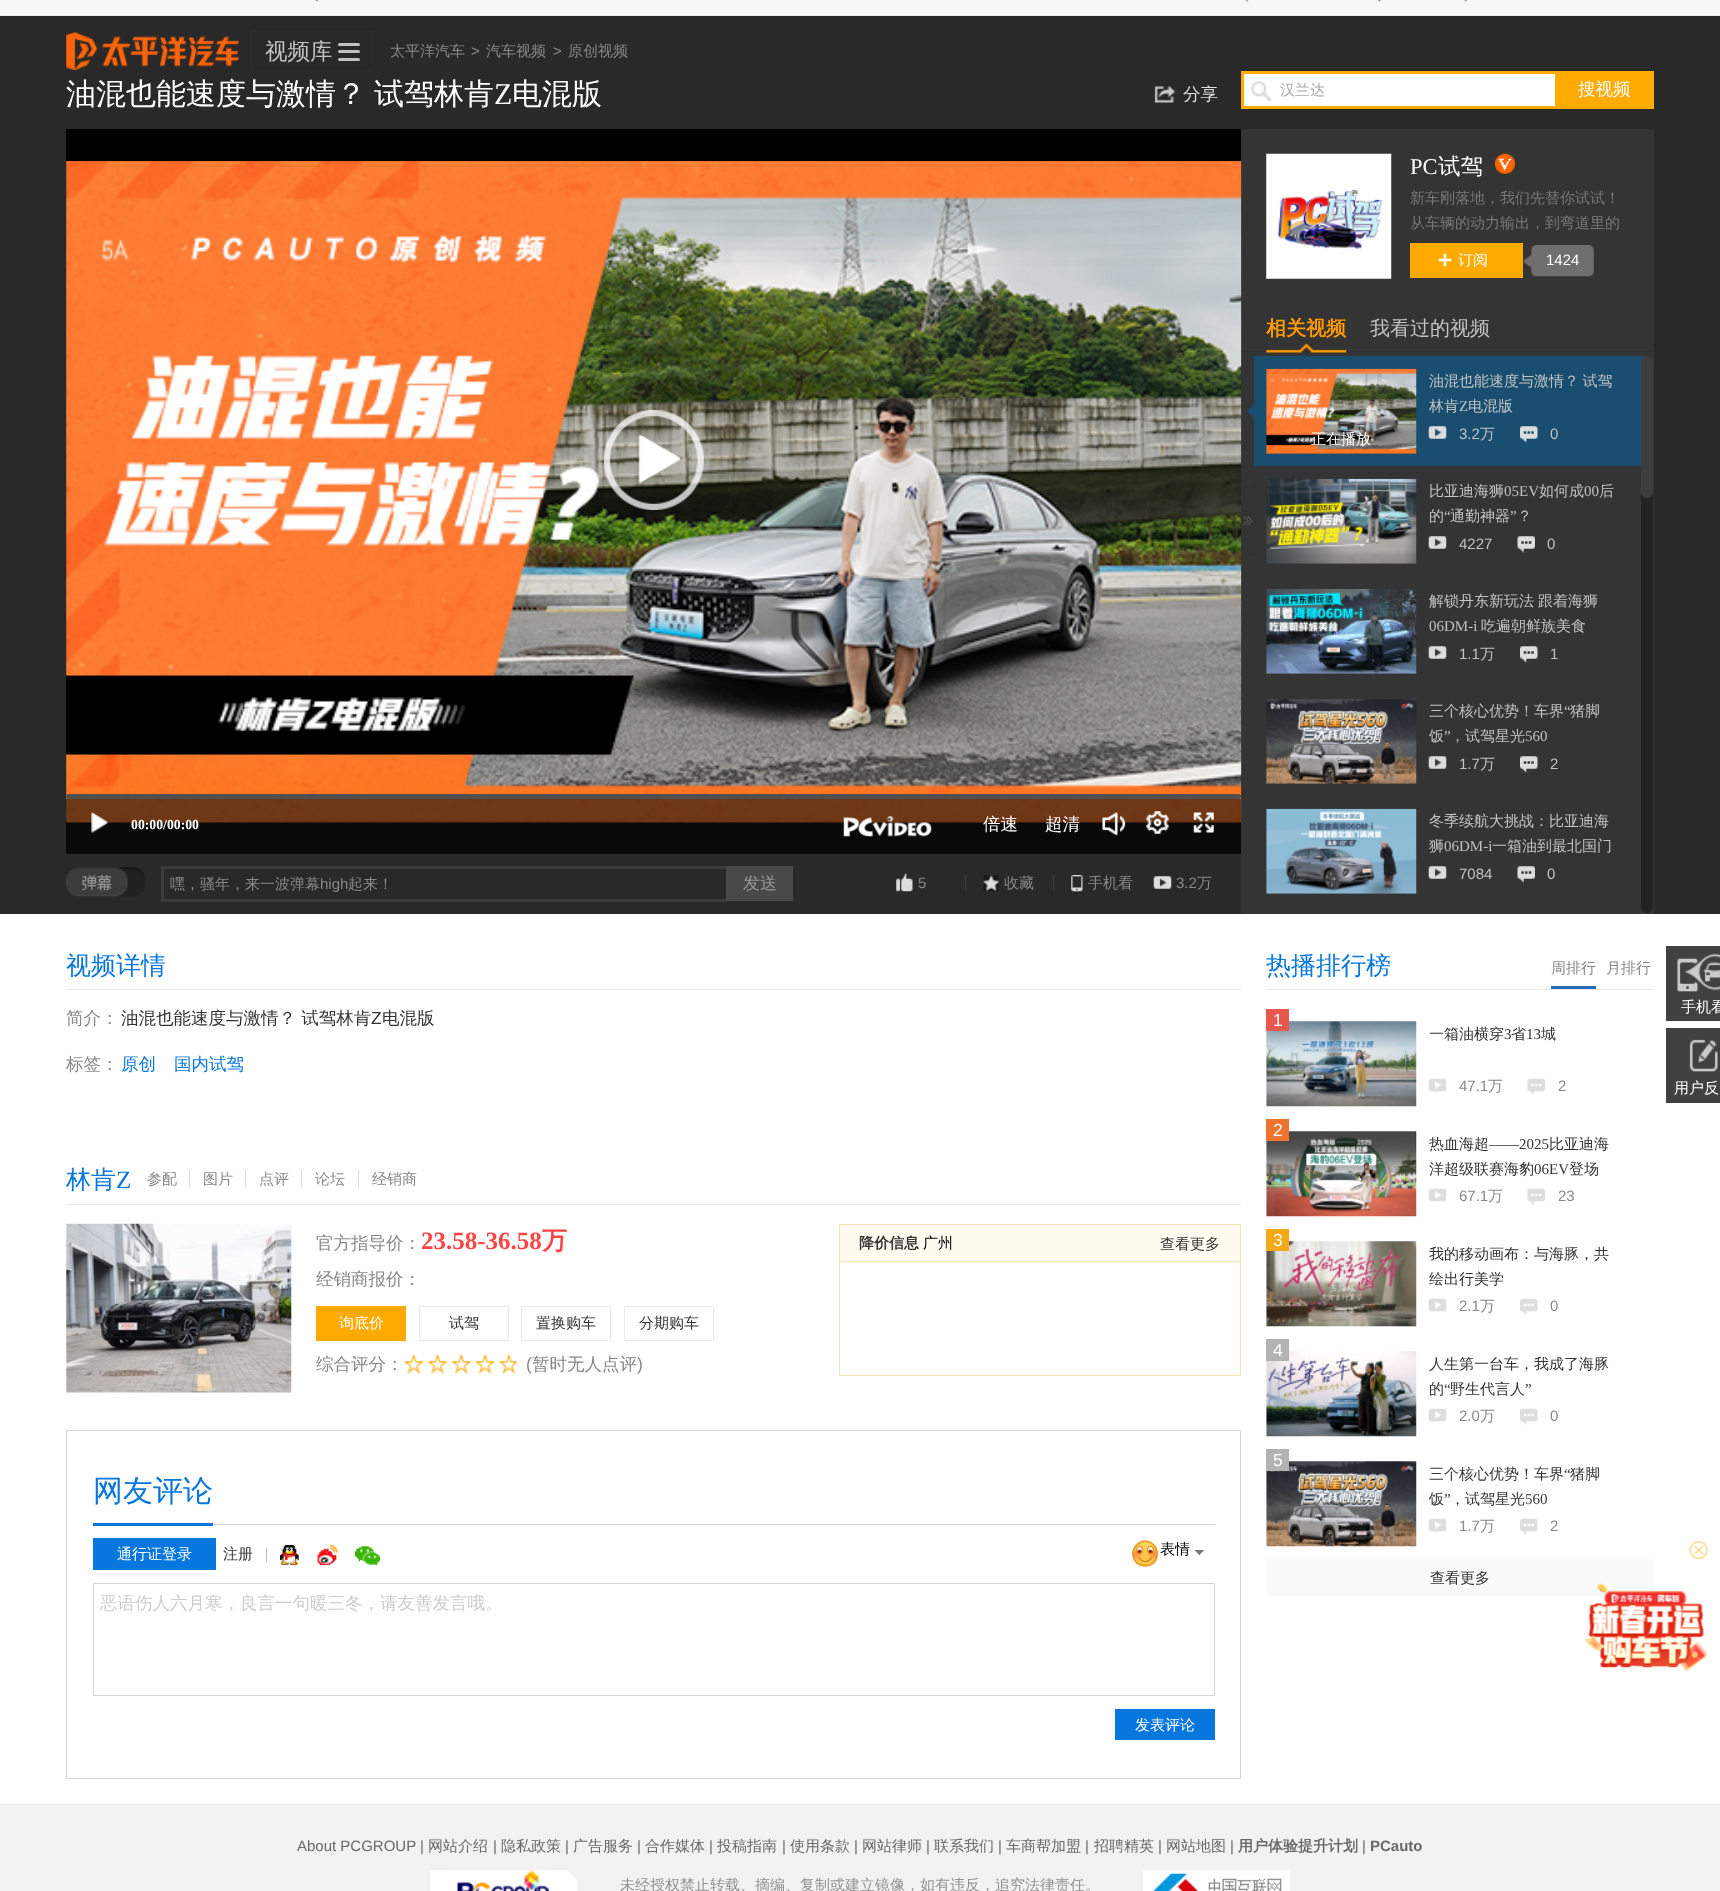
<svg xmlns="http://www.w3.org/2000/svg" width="1720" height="1891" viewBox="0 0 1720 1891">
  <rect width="100%" height="100%" fill="#fff"/>
  <path d="M0 0h1720v15H0z" fill="#f8f8f8"/>
  <path d="M0 15h1720v1H0z" fill="#ececec"/>
  <image x="315" y="0" width="4" height="2" href="img/1.png"/>
  <image x="1245" y="0" width="4" height="2" href="img/1.png"/>
  <image x="1377" y="0" width="5" height="2" href="img/2.png"/>
  <image x="1464" y="0" width="4" height="2" href="img/3.png"/>
  <path d="M0 16h1720v898H0z" fill="#292929"/>
  <image x="66" y="32" width="173" height="38" href="img/4.png"/>
  <path d="M251.5 31.5h122v39H251.5z" fill="none" stroke="#2e2e2e"/>
  <rect x="338" y="43" width="22" height="3" rx="1.5" fill="#c2c2c2"/>
  <rect x="338" y="50" width="22" height="3" rx="1.5" fill="#c2c2c2"/>
  <rect x="338" y="58" width="22" height="3" rx="1.5" fill="#c2c2c2"/>
  <image x="1154" y="85" width="22" height="18" href="img/5.png"/>
  <path d="M1241 71h413v38H1241z" fill="#fa0"/>
  <path d="M1244 74h311v32H1244z" fill="#fff"/>
  <image x="1251" y="81" width="21" height="21" href="img/6.png"/>
  <path d="M66 129h1175v725H66z" fill="#000"/>
  <path d="M1241 129h413v785H1241z" fill="#343434"/>
  <path d="M1241 351h413v1H1241z" fill="#2f2f2f"/>
  <image x="66" y="161" width="1176" height="661" href="img/8.png"/>
  <image x="66" y="161" width="1176" height="662" href="img/9.png"/>
  <image x="1241" y="485" width="14" height="71" href="img/7.png"/>
  <image x="603" y="410" width="101" height="100" href="img/10.png"/>
  <path d="M66 799h1175v55H66z" fill="#0f0f0f99"/>
  <rect x="66" y="794" width="1175" height="5" rx="2.5" fill="#505050"/>
  <image x="91" y="812" width="17" height="21" href="img/11.png"/>
  <image x="843" y="816" width="89" height="21" href="img/12.png"/>
  <image x="1102" y="812" width="24" height="24" href="img/13.png"/>
  <image x="1146" y="811" width="23" height="23" href="img/14.png"/>
  <image x="1193" y="812" width="21" height="21" href="img/15.png"/>
  <image x="66" y="867" width="79" height="30" href="img/16.png"/>
  <path d="M161 866h565v3H161z" fill="#3c3c3c"/>
  <path d="M161 899h565v3H161z" fill="#3c3c3c"/>
  <path d="M161 866h3v35H161z" fill="#3c3c3c"/>
  <path d="M726 866h67v35H726z" fill="#494949"/>
  <image x="896" y="873" width="17" height="19" href="img/17.png"/>
  <path d="M965 875h1v15H965z" fill="#3c3c3c"/>
  <image x="983" y="875" width="16" height="17" href="img/18.png"/>
  <path d="M1053 875h1v15H1053z" fill="#3c3c3c"/>
  <image x="1071" y="875" width="12" height="17" href="img/19.png"/>
  <image x="1153" y="876" width="19" height="13" href="img/20.png"/>
  <image x="1266" y="153" width="126" height="126" href="img/21.png"/>
  <image x="1495" y="153" width="20" height="21" href="img/22.png"/>
  <path d="M1410 243h113v35H1410z" fill="#fa0"/>
  <image x="1438" y="253" width="14" height="14" href="img/23.png"/>
  <image x="1522" y="245" width="72" height="32" href="img/24.png"/>
  <image x="1266" y="343" width="81" height="10" href="img/25.png"/>
  <path d="M1248 356h400v110H1248z" fill="#194e70"/>
  <rect x="1641" y="356" width="12" height="557" rx="6" fill="#222"/>
  <image x="1247" y="356" width="7" height="110" href="img/26.png"/>
  <image x="1266" y="368" width="151" height="86" href="img/27.png"/>
  <image x="1428" y="426" width="19" height="13" href="img/28.png"/>
  <image x="1520" y="426" width="18" height="17" href="img/29.png"/>
  <image x="1266" y="478" width="151" height="86" href="img/30.png"/>
  <image x="1428" y="536" width="19" height="13" href="img/31.png"/>
  <image x="1517" y="536" width="18" height="17" href="img/32.png"/>
  <image x="1266" y="588" width="151" height="86" href="img/33.png"/>
  <image x="1428" y="646" width="19" height="13" href="img/31.png"/>
  <image x="1520" y="646" width="18" height="17" href="img/34.png"/>
  <image x="1266" y="699" width="151" height="85" href="img/35.png"/>
  <image x="1428" y="756" width="19" height="13" href="img/36.png"/>
  <image x="1520" y="756" width="18" height="17" href="img/37.png"/>
  <image x="1266" y="808" width="151" height="86" href="img/38.png"/>
  <image x="1428" y="866" width="19" height="13" href="img/31.png"/>
  <image x="1517" y="866" width="18" height="17" href="img/32.png"/>
  <rect x="1641" y="356" width="12" height="142" rx="6" fill="#66666666"/>
  <path d="M66 989h1175v1H66z" fill="#e9e9e9"/>
  <path d="M66 1204h1175v1H66z" fill="#e9e9e9"/>
  <path d="M189 1170h1v18H189z" fill="#dcdcdc"/>
  <path d="M245 1170h1v18H245z" fill="#dcdcdc"/>
  <path d="M301 1170h1v18H301z" fill="#dcdcdc"/>
  <path d="M358 1170h1v18H358z" fill="#dcdcdc"/>
  <image x="66" y="1223" width="226" height="170" href="img/39.png"/>
  <path d="M316 1306h90v35H316z" fill="#fa0"/>
  <path d="M419.5 1306.5h89v34H419.5z" fill="none" stroke="#e9e9e9"/>
  <path d="M521.5 1306.5h89v34H521.5z" fill="none" stroke="#e9e9e9"/>
  <path d="M624.5 1306.5h89v34H624.5z" fill="none" stroke="#e9e9e9"/>
  <image x="403" y="1353" width="114" height="21" href="img/40.png"/>
  <path d="M839.5 1224.5h401v151H839.5z" fill="none" stroke="#f8e6b9"/>
  <path d="M840 1225h400v38H840z" fill="#fffbf0"/>
  <path d="M840 1261h400v1H840z" fill="#f8e6b9"/>
  <path d="M66.5 1430.5h1174v348H66.5z" fill="none" stroke="#d3d3d3"/>
  <path d="M213 1524h1002v1H213z" fill="#d3d3d3"/>
  <path d="M93 1523h120v3H93z" fill="#0777dd"/>
  <path d="M93 1538h123v32H93z" fill="#0777dd"/>
  <image x="280" y="1545" width="19" height="20" href="img/41.png"/>
  <image x="317" y="1545" width="21" height="20" href="img/42.png"/>
  <image x="355" y="1546" width="25" height="19" href="img/43.png"/>
  <image x="1195" y="1550" width="9" height="5" href="img/44.png"/>
  <image x="1131" y="1540" width="28" height="27" href="img/45.png"/>
  <path d="M93.5 1583.5h1121v112H93.5z" fill="none" stroke="#d3d3d3"/>
  <path d="M1115 1709h100v31H1115z" fill="#0777dd"/>
  <path d="M1266 989h388v1H1266z" fill="#e9e9e9"/>
  <path d="M1551 986h45v3H1551z" fill="#226fb7"/>
  <image x="1266" y="1021" width="151" height="86" href="img/46.png"/>
  <path d="M1266 1009h23v22H1266z" fill="#ea574e"/>
  <image x="1428" y="1078" width="19" height="14" href="img/47.png"/>
  <image x="1527" y="1078" width="18" height="17" href="img/48.png"/>
  <image x="1266" y="1131" width="151" height="86" href="img/49.png"/>
  <path d="M1266 1119h23v22H1266z" fill="#ee7430"/>
  <image x="1428" y="1188" width="19" height="14" href="img/47.png"/>
  <image x="1527" y="1188" width="18" height="17" href="img/48.png"/>
  <image x="1266" y="1241" width="151" height="86" href="img/50.png"/>
  <path d="M1266 1229h23v22H1266z" fill="#f5a917"/>
  <image x="1428" y="1298" width="19" height="14" href="img/47.png"/>
  <image x="1520" y="1298" width="18" height="17" href="img/51.png"/>
  <image x="1266" y="1351" width="151" height="86" href="img/52.png"/>
  <path d="M1266 1339h23v22H1266z" fill="#b3b3b3"/>
  <image x="1428" y="1408" width="19" height="14" href="img/47.png"/>
  <image x="1520" y="1408" width="18" height="17" href="img/51.png"/>
  <image x="1266" y="1461" width="151" height="86" href="img/53.png"/>
  <path d="M1266 1449h23v22H1266z" fill="#b3b3b3"/>
  <image x="1428" y="1518" width="19" height="14" href="img/47.png"/>
  <image x="1520" y="1518" width="18" height="17" href="img/51.png"/>
  <path d="M1266 1559h388v37H1266z" fill="#f9f9f9"/>
  <path d="M1666 946h54v75H1666z" fill="#414141"/>
  <image x="1677" y="953" width="43" height="39" href="img/54.png"/>
  <path d="M1666 1028h54v75H1666z" fill="#414141"/>
  <image x="1689" y="1039" width="29" height="33" href="img/55.png"/>
  <image x="1689" y="1541" width="19" height="19" href="img/56.png"/>
  <image x="1584" y="1583" width="125" height="89" href="img/57.png"/>
  <path d="M0 1805h1720v86H0z" fill="#f2f2f2"/>
  <path d="M0 1804h1720v1H0z" fill="#e6e6e6"/>
  <image x="430" y="1869" width="148" height="22" href="img/58.png"/>
  <image x="1143" y="1870" width="147" height="21" href="img/59.png"/>
  <text x="265" y="59" font-family="WenQuanYi Zen Hei" font-size="22.5" font-weight="500" fill="#c2c2c2">视频库</text>
  <text x="390" y="56" font-family="WenQuanYi Zen Hei" font-size="15" font-weight="500" fill="#888">太平洋汽车</text>
  <text x="471" y="56" font-family="Liberation Sans" font-size="15" fill="#888">&gt;</text>
  <text x="486" y="56" font-family="WenQuanYi Zen Hei" font-size="15" font-weight="500" fill="#888">汽车视频</text>
  <text x="553" y="56" font-family="Liberation Sans" font-size="15" fill="#888">&gt;</text>
  <text x="568" y="56" font-family="WenQuanYi Zen Hei" font-size="15" font-weight="500" fill="#888">原创视频</text>
  <text x="66" y="104" word-spacing="-1" font-family="WenQuanYi Zen Hei" font-size="30" font-weight="500" fill="#fff">油混也能速度与激情？ 试驾林肯</text>
  <text x="494" y="104" font-family="Liberation Serif" font-size="30" fill="#fff">Z</text>
  <text x="512" y="104" font-family="WenQuanYi Zen Hei" font-size="30" font-weight="500" fill="#fff">电混版</text>
  <text x="1183" y="100" font-family="WenQuanYi Zen Hei" font-size="17.5" font-weight="500" fill="#ddd">分享</text>
  <text x="1280" y="95" font-family="WenQuanYi Zen Hei" font-size="15" font-weight="500" fill="#aaa">汉兰达</text>
  <text x="1578" y="95" font-family="WenQuanYi Zen Hei" font-size="17.5" font-weight="500" fill="#fff">搜视频</text>
  <text x="131" y="829" font-family="Liberation Serif" font-size="13.75" font-weight="bold" fill="#fff">00:00/00:00</text>
  <g font-family="WenQuanYi Zen Hei" font-size="17.5" font-weight="500" fill="#fff">
    <text x="983" y="830">倍速</text>
    <text x="1045" y="830">超清</text>
  </g>
  <text x="170" y="889" font-family="WenQuanYi Zen Hei" font-size="15" font-weight="500" fill="#888">嘿，骚年，来一波弹幕</text>
  <text x="320" y="889" font-family="Liberation Sans" font-size="15" fill="#888">high</text>
  <text x="348" y="889" font-family="WenQuanYi Zen Hei" font-size="15" font-weight="500" fill="#888">起来！</text>
  <text x="743" y="889" font-family="WenQuanYi Zen Hei" font-size="17" font-weight="500" fill="#999">发送</text>
  <text x="918" y="888" font-family="Liberation Sans" font-size="15" fill="#888">5</text>
  <g font-family="WenQuanYi Zen Hei" font-size="15" font-weight="500" fill="#888">
    <text x="1004" y="888">收藏</text>
    <text x="1088" y="888">手机看</text>
  </g>
  <text x="1176" y="888" font-family="Liberation Sans" font-size="15" fill="#888">3.2</text>
  <text x="1197" y="888" font-family="WenQuanYi Zen Hei" font-size="15" font-weight="500" fill="#888">万</text>
  <text x="1410" y="174" font-family="Liberation Serif" font-size="22.5" fill="#fff">PC</text>
  <text x="1438" y="174" font-family="WenQuanYi Zen Hei" font-size="22.5" font-weight="500" fill="#fff">试驾</text>
  <g font-family="WenQuanYi Zen Hei" font-size="15" font-weight="500" fill="#777">
    <text x="1410" y="203">新车刚落地，我们先替你试试！</text>
    <text x="1410" y="228">从车辆的动力输出，到弯道里的</text>
  </g>
  <text x="1458" y="265" font-family="WenQuanYi Zen Hei" font-size="15" font-weight="500" fill="#fff">订阅</text>
  <text x="1546" y="265" font-family="Liberation Sans" font-size="15" fill="#fff">1424</text>
  <text x="1266" y="335" font-family="WenQuanYi Zen Hei" font-size="20" font-weight="bold" fill="#f90">相关视频</text>
  <text x="1370" y="335" font-family="WenQuanYi Zen Hei" font-size="20" font-weight="500" fill="#c2c2c2">我看过的视频</text>
  <g font-family="WenQuanYi Zen Hei" font-size="15" font-weight="500" fill="#c2c2c2">
    <text x="1429" y="386" word-spacing="-1">油混也能速度与激情？ 试驾</text>
    <text x="1429" y="411">林肯</text>
  </g>
  <text x="1459" y="411" font-family="Liberation Serif" font-size="15" fill="#c2c2c2">Z</text>
  <text x="1468" y="411" font-family="WenQuanYi Zen Hei" font-size="15" font-weight="500" fill="#c2c2c2">电混版</text>
  <text x="1459" y="439" font-family="Liberation Sans" font-size="15" fill="#c2c2c2">3.2</text>
  <text x="1480" y="439" font-family="WenQuanYi Zen Hei" font-size="15" font-weight="500" fill="#c2c2c2">万</text>
  <text x="1550" y="439" font-family="Liberation Sans" font-size="15" fill="#c2c2c2">0</text>
  <text x="1311" y="444" font-family="WenQuanYi Zen Hei" font-size="15" font-weight="500" fill="#fff">正在播放</text>
  <text x="1429" y="496" font-family="WenQuanYi Zen Hei" font-size="15" font-weight="500" fill="#c2c2c2">比亚迪海狮</text>
  <text x="1504" y="496" font-family="Liberation Serif" font-size="15" fill="#c2c2c2">05EV</text>
  <text x="1539" y="496" font-family="WenQuanYi Zen Hei" font-size="15" font-weight="500" fill="#c2c2c2">如何成</text>
  <text x="1584" y="496" font-family="Liberation Serif" font-size="15" fill="#c2c2c2">00</text>
  <g font-family="WenQuanYi Zen Hei" font-size="15" font-weight="500" fill="#c2c2c2">
    <text x="1599" y="496">后</text>
    <text x="1429" y="521">的</text>
  </g>
  <text x="1444" y="521" font-family="Liberation Serif" font-size="15" fill="#c2c2c2">“</text>
  <text x="1450" y="521" font-family="WenQuanYi Zen Hei" font-size="15" font-weight="500" fill="#c2c2c2">通勤神器</text>
  <text x="1510" y="521" font-family="Liberation Serif" font-size="15" fill="#c2c2c2">”</text>
  <text x="1517" y="521" font-family="WenQuanYi Zen Hei" font-size="15" font-weight="500" fill="#c2c2c2">？</text>
  <g font-family="Liberation Sans" font-size="15" fill="#c2c2c2">
    <text x="1459" y="549">4227</text>
    <text x="1547" y="549">0</text>
  </g>
  <g font-family="WenQuanYi Zen Hei" font-size="15" font-weight="500" fill="#c2c2c2">
    <text x="1429" y="606">解锁丹东新玩法</text>
    <text x="1538" y="606">跟着海狮</text>
  </g>
  <text x="1429" y="631" font-family="Liberation Serif" font-size="15" fill="#c2c2c2">06DM-i</text>
  <text x="1481" y="631" font-family="WenQuanYi Zen Hei" font-size="15" font-weight="500" fill="#c2c2c2">吃遍朝鲜族美食</text>
  <text x="1459" y="659" font-family="Liberation Sans" font-size="15" fill="#c2c2c2">1.1</text>
  <text x="1480" y="659" font-family="WenQuanYi Zen Hei" font-size="15" font-weight="500" fill="#c2c2c2">万</text>
  <text x="1550" y="659" font-family="Liberation Sans" font-size="15" fill="#c2c2c2">1</text>
  <text x="1429" y="716" font-family="WenQuanYi Zen Hei" font-size="15" font-weight="500" fill="#c2c2c2">三个核心优势！车界</text>
  <text x="1564" y="716" font-family="Liberation Serif" font-size="15" fill="#c2c2c2">“</text>
  <g font-family="WenQuanYi Zen Hei" font-size="15" font-weight="500" fill="#c2c2c2">
    <text x="1570" y="716">猪脚</text>
    <text x="1429" y="741">饭</text>
  </g>
  <text x="1444" y="741" font-family="Liberation Serif" font-size="15" fill="#c2c2c2">”</text>
  <text x="1450" y="741" font-family="WenQuanYi Zen Hei" font-size="15" font-weight="500" fill="#c2c2c2">，试驾星光</text>
  <text x="1525" y="741" font-family="Liberation Serif" font-size="15" fill="#c2c2c2">560</text>
  <text x="1459" y="769" font-family="Liberation Sans" font-size="15" fill="#c2c2c2">1.7</text>
  <text x="1480" y="769" font-family="WenQuanYi Zen Hei" font-size="15" font-weight="500" fill="#c2c2c2">万</text>
  <text x="1550" y="769" font-family="Liberation Sans" font-size="15" fill="#c2c2c2">2</text>
  <g font-family="WenQuanYi Zen Hei" font-size="15" font-weight="500" fill="#c2c2c2">
    <text x="1429" y="826">冬季续航大挑战：比亚迪海</text>
    <text x="1429" y="851">狮</text>
  </g>
  <text x="1444" y="851" font-family="Liberation Serif" font-size="15" fill="#c2c2c2">06DM-i</text>
  <text x="1492" y="851" font-family="WenQuanYi Zen Hei" font-size="15" font-weight="500" fill="#c2c2c2">一箱油到最北国门</text>
  <g font-family="Liberation Sans" font-size="15" fill="#c2c2c2">
    <text x="1459" y="879">7084</text>
    <text x="1547" y="879">0</text>
  </g>
  <text x="66" y="974" font-family="WenQuanYi Zen Hei" font-size="25" font-weight="500" fill="#0777dd">视频详情</text>
  <text x="66" y="1024" font-family="WenQuanYi Zen Hei" font-size="17.5" font-weight="500" fill="#888">简介：</text>
  <text x="121" y="1024" font-family="WenQuanYi Zen Hei" font-size="17.5" font-weight="500" fill="#333">油混也能速度与激情？ 试驾林肯</text>
  <text x="371" y="1024" font-family="Liberation Sans" font-size="17.5" fill="#333">Z</text>
  <text x="382" y="1024" font-family="WenQuanYi Zen Hei" font-size="17.5" font-weight="500" fill="#333">电混版</text>
  <text x="66" y="1070" font-family="WenQuanYi Zen Hei" font-size="17.5" font-weight="500" fill="#888">标签：</text>
  <g font-family="WenQuanYi Zen Hei" font-size="17.5" font-weight="500" fill="#0777dd">
    <text x="121" y="1070">原创</text>
    <text x="174" y="1070">国内试驾</text>
  </g>
  <text x="66" y="1188" font-family="WenQuanYi Zen Hei" font-size="25" font-weight="500" fill="#0777dd">林肯</text>
  <text x="116" y="1188" font-family="Liberation Serif" font-size="25" fill="#0777dd">Z</text>
  <g font-family="WenQuanYi Zen Hei" font-size="15" font-weight="500" fill="#888">
    <text x="147" y="1184">参配</text>
    <text x="203" y="1184">图片</text>
    <text x="259" y="1184">点评</text>
    <text x="315" y="1184">论坛</text>
    <text x="372" y="1184">经销商</text>
  </g>
  <text x="316" y="1249" font-family="WenQuanYi Zen Hei" font-size="17.5" font-weight="500" fill="#888">官方指导价：</text>
  <text x="421" y="1249" font-family="Liberation Serif" font-size="25" font-weight="bold" fill="#f44">23.58-36.58</text>
  <text x="542" y="1249" font-family="WenQuanYi Zen Hei" font-size="25" font-weight="bold" fill="#f44">万</text>
  <text x="316" y="1285" font-family="WenQuanYi Zen Hei" font-size="17.5" font-weight="500" fill="#888">经销商报价：</text>
  <text x="339" y="1328" font-family="WenQuanYi Zen Hei" font-size="15" font-weight="500" fill="#fff">询底价</text>
  <g font-family="WenQuanYi Zen Hei" font-size="15" font-weight="500" fill="#333">
    <text x="449" y="1328">试驾</text>
    <text x="536" y="1328">置换购车</text>
    <text x="639" y="1328">分期购车</text>
  </g>
  <text x="316" y="1370" font-family="WenQuanYi Zen Hei" font-size="17.5" font-weight="500" fill="#888">综合评分：</text>
  <text x="526" y="1370" font-family="Liberation Sans" font-size="17.5" fill="#888">(</text>
  <text x="532" y="1370" font-family="WenQuanYi Zen Hei" font-size="17.5" font-weight="500" fill="#888">暂时无人点评</text>
  <text x="637" y="1370" font-family="Liberation Sans" font-size="17.5" fill="#888">)</text>
  <text x="859" y="1248" font-family="WenQuanYi Zen Hei" font-size="15" font-weight="bold" fill="#333">降价信息</text>
  <text x="923" y="1248" font-family="WenQuanYi Zen Hei" font-size="15" font-weight="500" fill="#000">广州</text>
  <text x="1160" y="1249" font-family="WenQuanYi Zen Hei" font-size="15" font-weight="500" fill="#333">查看更多</text>
  <text x="93" y="1501" font-family="WenQuanYi Zen Hei" font-size="30" font-weight="500" fill="#0777dd">网友评论</text>
  <text x="117" y="1559" font-family="WenQuanYi Zen Hei" font-size="15" font-weight="500" fill="#fff">通行证登录</text>
  <text x="223" y="1559" font-family="WenQuanYi Zen Hei" font-size="15" font-weight="500" fill="#333">注册</text>
  <text x="265" y="1559" font-family="Liberation Serif" font-size="15" fill="#aaa">|</text>
  <text x="1160" y="1554" font-family="WenQuanYi Zen Hei" font-size="15" font-weight="500" fill="#000">表情</text>
  <text x="100" y="1609" font-family="WenQuanYi Zen Hei" font-size="17.5" font-weight="500" fill="#ccc">恶语伤人六月寒，良言一句暖三冬，请友善发言哦。</text>
  <text x="1135" y="1730" font-family="WenQuanYi Zen Hei" font-size="15" font-weight="500" fill="#fff">发表评论</text>
  <text x="1266" y="974" font-family="WenQuanYi Zen Hei" font-size="25" font-weight="500" fill="#0777dd">热播排行榜</text>
  <g font-family="WenQuanYi Zen Hei" font-size="15" font-weight="500" fill="#888">
    <text x="1551" y="973">周排行</text>
    <text x="1606" y="973">月排行</text>
  </g>
  <text x="1273" y="1026" font-family="Liberation Sans" font-size="17.5" fill="#fff">1</text>
  <text x="1429" y="1039" font-family="WenQuanYi Zen Hei" font-size="15" font-weight="500" fill="#333">一箱油横穿</text>
  <text x="1504" y="1039" font-family="Liberation Serif" font-size="15" fill="#333">3</text>
  <text x="1511" y="1039" font-family="WenQuanYi Zen Hei" font-size="15" font-weight="500" fill="#333">省</text>
  <text x="1526" y="1039" font-family="Liberation Serif" font-size="15" fill="#333">13</text>
  <text x="1541" y="1039" font-family="WenQuanYi Zen Hei" font-size="15" font-weight="500" fill="#333">城</text>
  <text x="1459" y="1091" font-family="Liberation Sans" font-size="15" fill="#888">47.1</text>
  <text x="1488" y="1091" font-family="WenQuanYi Zen Hei" font-size="15" font-weight="500" fill="#888">万</text>
  <text x="1558" y="1091" font-family="Liberation Sans" font-size="15" fill="#888">2</text>
  <text x="1273" y="1136" font-family="Liberation Sans" font-size="17.5" fill="#fff">2</text>
  <text x="1429" y="1149" font-family="WenQuanYi Zen Hei" font-size="15" font-weight="500" fill="#333">热血海超</text>
  <text x="1489" y="1149" font-family="Liberation Serif" font-size="15" fill="#333">——2025</text>
  <g font-family="WenQuanYi Zen Hei" font-size="15" font-weight="500" fill="#333">
    <text x="1549" y="1149">比亚迪海</text>
    <text x="1429" y="1174">洋超级联赛海豹</text>
  </g>
  <text x="1534" y="1174" font-family="Liberation Serif" font-size="15" fill="#333">06EV</text>
  <text x="1569" y="1174" font-family="WenQuanYi Zen Hei" font-size="15" font-weight="500" fill="#333">登场</text>
  <text x="1459" y="1201" font-family="Liberation Sans" font-size="15" fill="#888">67.1</text>
  <text x="1488" y="1201" font-family="WenQuanYi Zen Hei" font-size="15" font-weight="500" fill="#888">万</text>
  <text x="1558" y="1201" font-family="Liberation Sans" font-size="15" fill="#888">23</text>
  <text x="1273" y="1246" font-family="Liberation Sans" font-size="17.5" fill="#fff">3</text>
  <g font-family="WenQuanYi Zen Hei" font-size="15" font-weight="500" fill="#333">
    <text x="1429" y="1259">我的移动画布：与海豚，共</text>
    <text x="1429" y="1284">绘出行美学</text>
  </g>
  <text x="1459" y="1311" font-family="Liberation Sans" font-size="15" fill="#888">2.1</text>
  <text x="1480" y="1311" font-family="WenQuanYi Zen Hei" font-size="15" font-weight="500" fill="#888">万</text>
  <text x="1550" y="1311" font-family="Liberation Sans" font-size="15" fill="#888">0</text>
  <text x="1273" y="1356" font-family="Liberation Sans" font-size="17.5" fill="#fff">4</text>
  <g font-family="WenQuanYi Zen Hei" font-size="15" font-weight="500" fill="#333">
    <text x="1429" y="1369">人生第一台车，我成了海豚</text>
    <text x="1429" y="1394">的</text>
  </g>
  <text x="1444" y="1394" font-family="Liberation Serif" font-size="15" fill="#333">“</text>
  <text x="1450" y="1394" font-family="WenQuanYi Zen Hei" font-size="15" font-weight="500" fill="#333">野生代言人</text>
  <text x="1525" y="1394" font-family="Liberation Serif" font-size="15" fill="#333">”</text>
  <text x="1459" y="1421" font-family="Liberation Sans" font-size="15" fill="#888">2.0</text>
  <text x="1480" y="1421" font-family="WenQuanYi Zen Hei" font-size="15" font-weight="500" fill="#888">万</text>
  <text x="1550" y="1421" font-family="Liberation Sans" font-size="15" fill="#888">0</text>
  <text x="1273" y="1466" font-family="Liberation Sans" font-size="17.5" fill="#fff">5</text>
  <text x="1429" y="1479" font-family="WenQuanYi Zen Hei" font-size="15" font-weight="500" fill="#333">三个核心优势！车界</text>
  <text x="1564" y="1479" font-family="Liberation Serif" font-size="15" fill="#333">“</text>
  <g font-family="WenQuanYi Zen Hei" font-size="15" font-weight="500" fill="#333">
    <text x="1570" y="1479">猪脚</text>
    <text x="1429" y="1504">饭</text>
  </g>
  <text x="1444" y="1504" font-family="Liberation Serif" font-size="15" fill="#333">”</text>
  <text x="1450" y="1504" font-family="WenQuanYi Zen Hei" font-size="15" font-weight="500" fill="#333">，试驾星光</text>
  <text x="1525" y="1504" font-family="Liberation Serif" font-size="15" fill="#333">560</text>
  <text x="1459" y="1531" font-family="Liberation Sans" font-size="15" fill="#888">1.7</text>
  <text x="1480" y="1531" font-family="WenQuanYi Zen Hei" font-size="15" font-weight="500" fill="#888">万</text>
  <text x="1550" y="1531" font-family="Liberation Sans" font-size="15" fill="#888">2</text>
  <text x="1430" y="1583" font-family="WenQuanYi Zen Hei" font-size="15" font-weight="500" fill="#333">查看更多</text>
  <g font-family="WenQuanYi Zen Hei" font-size="15" font-weight="500" fill="#fff">
    <text x="1681" y="1012">手机看</text>
    <text x="1674" y="1093">用户反</text>
  </g>
  <text x="297" y="1851" font-family="Liberation Sans" font-size="15" fill="#696969">About PCGROUP |</text>
  <text x="428" y="1851" font-family="WenQuanYi Zen Hei" font-size="15" font-weight="500" fill="#696969">网站介绍</text>
  <text x="493" y="1851" font-family="Liberation Sans" font-size="15" fill="#696969">|</text>
  <text x="501" y="1851" font-family="WenQuanYi Zen Hei" font-size="15" font-weight="500" fill="#696969">隐私政策</text>
  <text x="565" y="1851" font-family="Liberation Sans" font-size="15" fill="#696969">|</text>
  <text x="573" y="1851" font-family="WenQuanYi Zen Hei" font-size="15" font-weight="500" fill="#696969">广告服务</text>
  <text x="637" y="1851" font-family="Liberation Sans" font-size="15" fill="#696969">|</text>
  <text x="645" y="1851" font-family="WenQuanYi Zen Hei" font-size="15" font-weight="500" fill="#696969">合作媒体</text>
  <text x="709" y="1851" font-family="Liberation Sans" font-size="15" fill="#696969">|</text>
  <text x="717" y="1851" font-family="WenQuanYi Zen Hei" font-size="15" font-weight="500" fill="#696969">投稿指南</text>
  <text x="782" y="1851" font-family="Liberation Sans" font-size="15" fill="#696969">|</text>
  <text x="790" y="1851" font-family="WenQuanYi Zen Hei" font-size="15" font-weight="500" fill="#696969">使用条款</text>
  <text x="854" y="1851" font-family="Liberation Sans" font-size="15" fill="#696969">|</text>
  <text x="862" y="1851" font-family="WenQuanYi Zen Hei" font-size="15" font-weight="500" fill="#696969">网站律师</text>
  <text x="926" y="1851" font-family="Liberation Sans" font-size="15" fill="#696969">|</text>
  <text x="934" y="1851" font-family="WenQuanYi Zen Hei" font-size="15" font-weight="500" fill="#696969">联系我们</text>
  <text x="998" y="1851" font-family="Liberation Sans" font-size="15" fill="#696969">|</text>
  <text x="1006" y="1851" font-family="WenQuanYi Zen Hei" font-size="15" font-weight="500" fill="#696969">车商帮加盟</text>
  <text x="1085" y="1851" font-family="Liberation Sans" font-size="15" fill="#696969">|</text>
  <text x="1094" y="1851" font-family="WenQuanYi Zen Hei" font-size="15" font-weight="500" fill="#696969">招聘精英</text>
  <text x="1158" y="1851" font-family="Liberation Sans" font-size="15" fill="#696969">|</text>
  <text x="1166" y="1851" font-family="WenQuanYi Zen Hei" font-size="15" font-weight="500" fill="#696969">网站地图</text>
  <text x="1230" y="1851" font-family="Liberation Sans" font-size="15" fill="#696969">|</text>
  <text x="1238" y="1851" font-family="WenQuanYi Zen Hei" font-size="15" font-weight="bold" fill="#696969">用户体验提升计划</text>
  <text x="1362" y="1851" font-family="Liberation Sans" font-size="15" fill="#696969">|</text>
  <text x="1370" y="1851" font-family="Liberation Sans" font-size="15" font-weight="bold" fill="#696969">PCauto</text>
  <text x="620" y="1890" font-family="WenQuanYi Zen Hei" font-size="15" font-weight="500" fill="#919191">未经授权禁止转载、摘编、复制或建立镜像，如有违反，追究法律责任。</text>
</svg>
